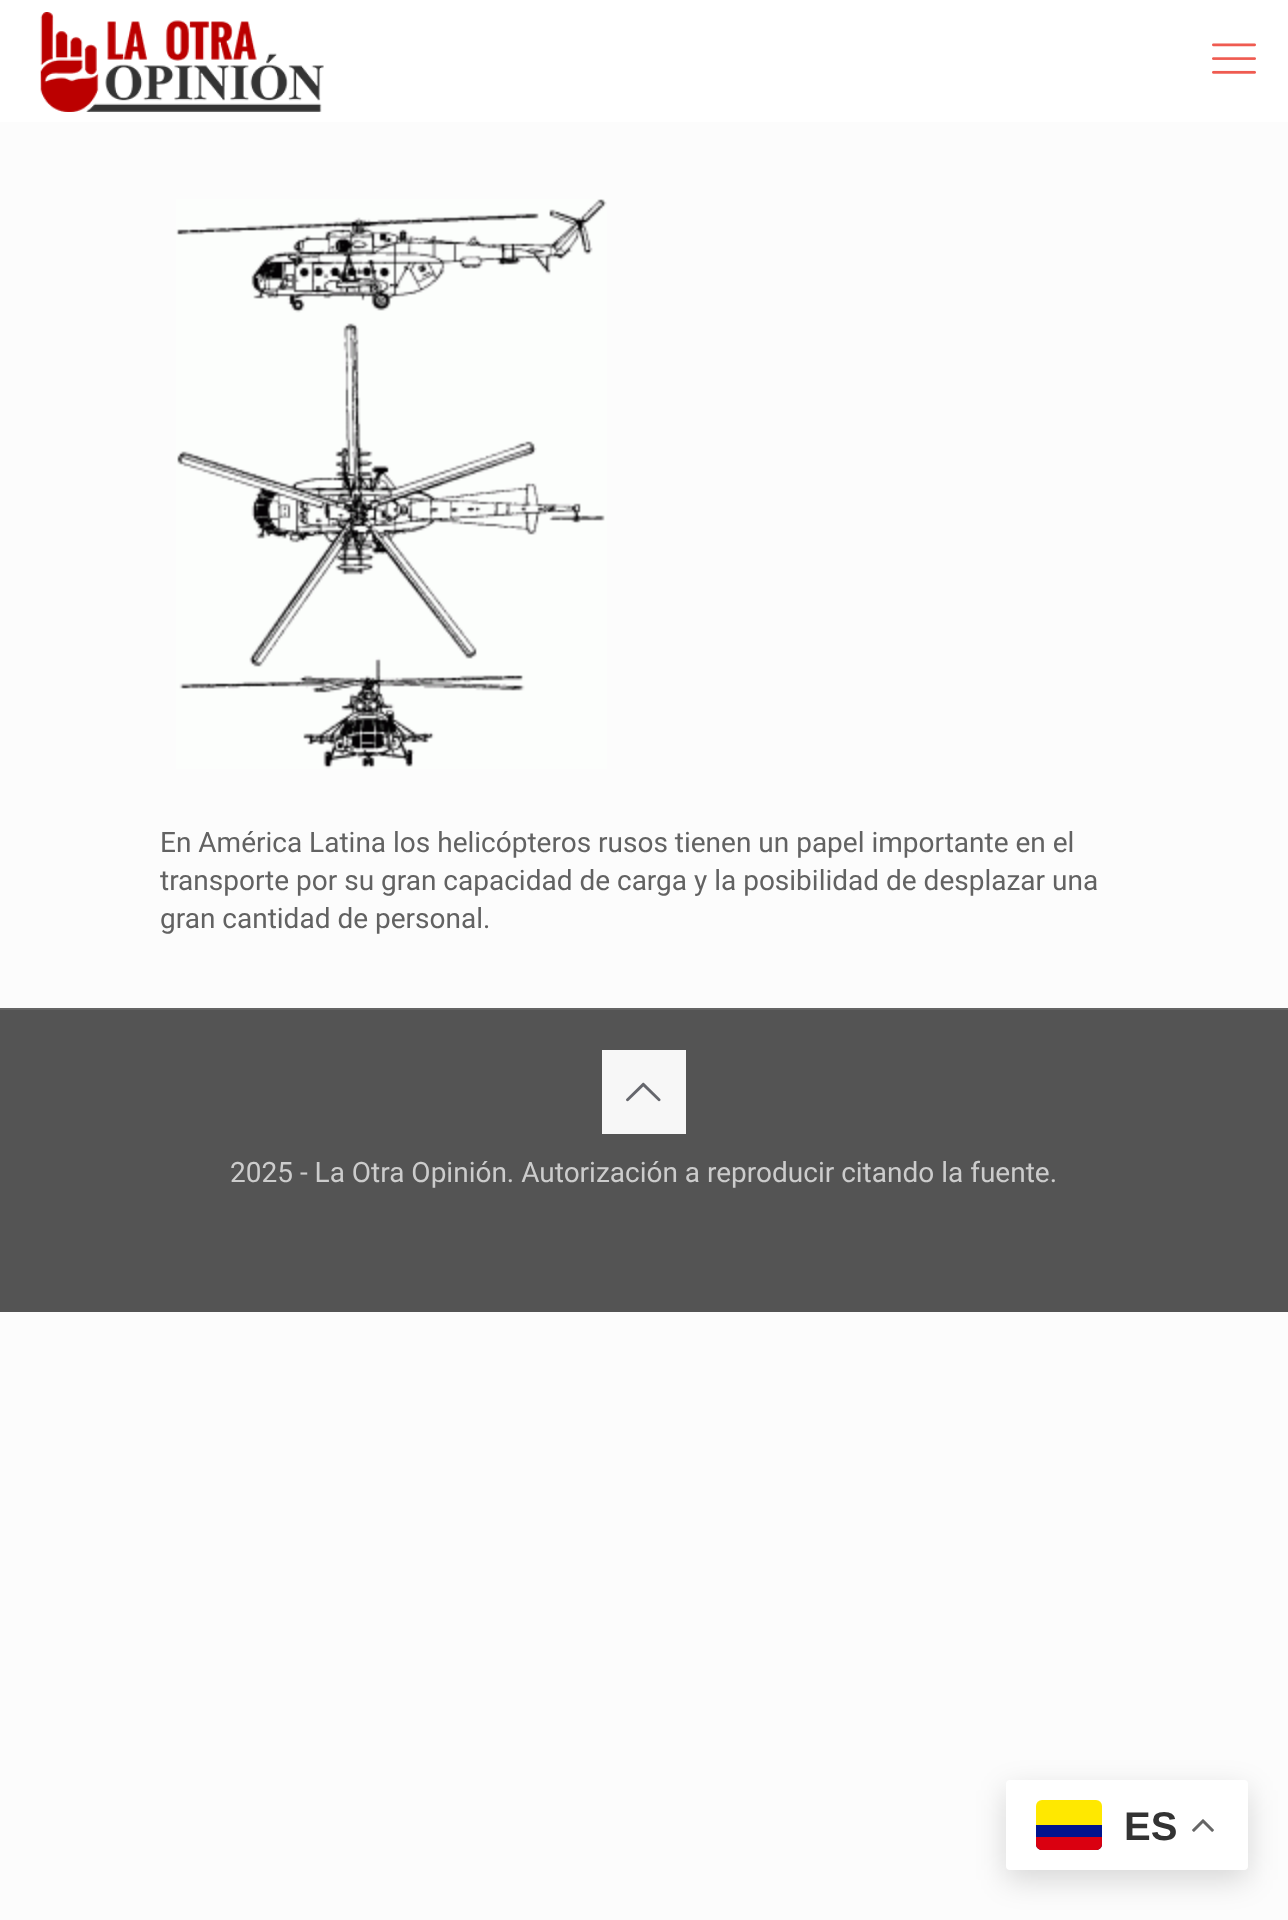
<svg xmlns="http://www.w3.org/2000/svg" width="1288" height="1920" viewBox="0 0 1288 1920">
  <rect width="100%" height="100%" fill="#fcfcfc"/>
  <path d="M0 0h1288v122H0z" fill="#fff"/>
  <image x="40" y="12" width="284" height="100" href="img/1.png"/>
  <image x="1212" y="43" width="44" height="31" href="img/2.png"/>
  <image x="176" y="199" width="431" height="570" href="img/3.png"/>
  <path d="M0 1010h1288v302H0z" fill="#545454"/>
  <path d="M0 1008h1288v2H0z" fill="#656565"/>
  <path d="M602 1050h84v84H602z" fill="#f7f7f7"/>
  <image x="626" y="1082" width="35" height="20" href="img/4.png"/>
  <rect x="1006" y="1790" width="242" height="90" rx="4" fill="#00000026" filter="blur(15px)"/>
  <rect x="1006" y="1780" width="242" height="90" rx="4" fill="#fff"/>
  <rect x="1036" y="1800" width="66" height="50" rx="6" fill="#ffe800"/>
  <path d="M1036 1825H1102V1844C1102 1847.5 1099.5 1850 1096 1850H1042C1038.5 1850 1036 1847.5 1036 1844Z" fill="#00148e"/>
  <path d="M1036 1837H1102V1844C1102 1847.5 1099.5 1850 1096 1850H1042C1038.5 1850 1036 1847.5 1036 1844Z" fill="#da0010"/>
  <image x="1192" y="1819" width="22" height="13" href="img/5.png"/>
  <g font-family="Roboto" font-size="28" fill="#626262">
    <text x="160" y="852">En América Latina los helicópteros rusos tienen un papel importante en el</text>
    <text x="160" y="890">transporte por su gran capacidad de carga y la posibilidad de desplazar una</text>
    <text x="160" y="928">gran cantidad de personal.</text>
  </g>
  <text x="230" y="1182" font-family="Roboto" font-size="28" fill="#ccc">2025 - La Otra Opinión. Autorización a reproducir citando la fuente.</text>
  <text x="1124" y="1840" font-family="Liberation Sans" font-size="40" font-weight="bold" fill="#333">ES</text>
</svg>
